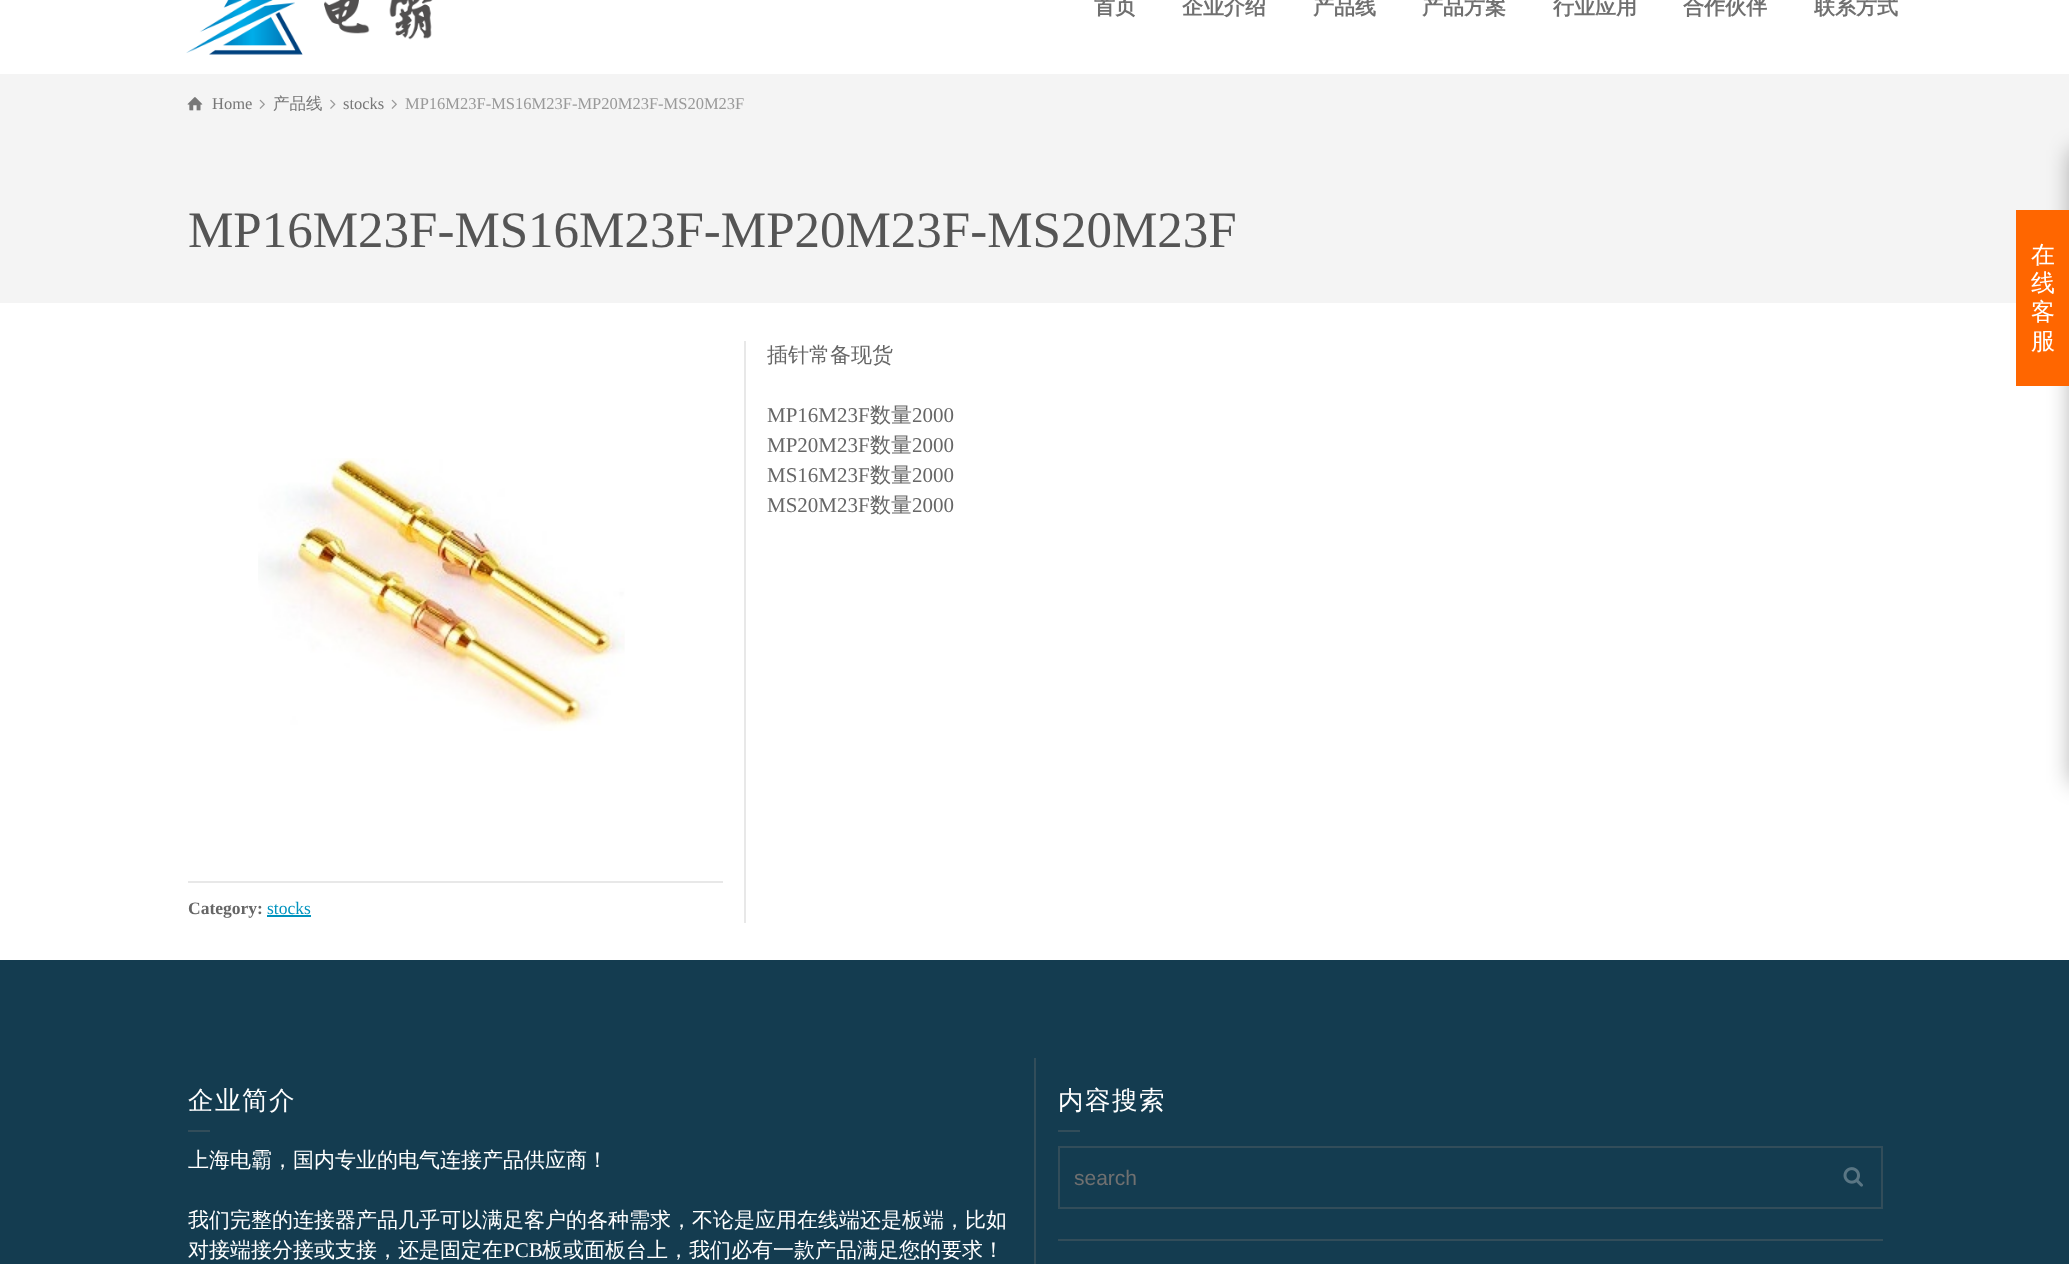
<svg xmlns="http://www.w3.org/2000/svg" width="2069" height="1264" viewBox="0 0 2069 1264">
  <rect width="100%" height="100%" fill="#fff"/>
  <image x="186" y="0" width="247" height="55" href="img/1.png"/>
  <path d="M0 74h2069v229H0z" fill="#f4f4f4"/>
  <image x="187" y="97" width="16" height="14" href="img/2.png"/>
  <image x="259" y="99" width="6" height="10" href="img/3.png"/>
  <image x="330" y="99" width="6" height="10" href="img/4.png"/>
  <image x="391" y="99" width="6" height="10" href="img/3.png"/>
  <path d="M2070 150h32v633H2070z" fill="#0000004d" filter="blur(11px)"/>
  <path d="M2016 210h53v176H2016z" fill="#f60"/>
  <path d="M744 341h2v582H744z" fill="#e8e8e8"/>
  <image x="258" y="458" width="367" height="273" href="img/5.png"/>
  <path d="M188 881h535v2H188z" fill="#e8e8e8"/>
  <path d="M267 915h44v2H267z" fill="#0093be"/>
  <path d="M0 960h2069v304H0z" fill="#143c50"/>
  <path d="M188 1130h22v2H188z" fill="#324d5a"/>
  <path d="M1034 1058h2v206H1034z" fill="#324d5a"/>
  <path d="M1058 1130h22v2H1058z" fill="#324d5a"/>
  <path d="M1059 1147h823v61H1059z" fill="none" stroke="#324d5a" stroke-width="2"/>
  <image x="1843" y="1167" width="20" height="20" href="img/6.png"/>
  <path d="M1058 1239h825v2H1058z" fill="#324d5a"/>
  <g font-family="WenQuanYi Zen Hei" font-size="21" font-weight="bold" fill="#707070">
    <text x="1094" y="14">首页</text>
    <text x="1182" y="14">企业介绍</text>
    <text x="1313" y="14">产品线</text>
    <text x="1422" y="14">产品方案</text>
    <text x="1553" y="14">行业应用</text>
    <text x="1683" y="14">合作伙伴</text>
    <text x="1814" y="14">联系方式</text>
  </g>
  <text x="212" y="109" font-family="Liberation Serif" font-size="16.5" fill="#777">Home</text>
  <text x="273" y="109" font-family="WenQuanYi Zen Hei" font-size="16.5" font-weight="500" fill="#777">产品线</text>
  <text x="343" y="109" font-family="Liberation Serif" font-size="16.5" fill="#777">stocks</text>
  <text x="405" y="109" font-family="Liberation Serif" font-size="16.5" fill="#999">MP16M23F-MS16M23F-MP20M23F-MS20M23F</text>
  <text x="188" y="247" font-family="Liberation Serif" font-size="51" fill="#555">MP16M23F-MS16M23F-MP20M23F-MS20M23F</text>
  <g font-family="WenQuanYi Zen Hei" font-size="24" font-weight="500" fill="#fff">
    <text x="2031" y="263">在</text>
    <text x="2031" y="291">线</text>
    <text x="2031" y="320">客</text>
    <text x="2031" y="349">服</text>
  </g>
  <text x="767" y="362" font-family="WenQuanYi Zen Hei" font-size="21" font-weight="500" fill="#666">插针常备现货</text>
  <text x="767" y="422" font-family="Liberation Serif" font-size="21" fill="#666">MP16M23F</text>
  <text x="870" y="422" font-family="WenQuanYi Zen Hei" font-size="21" font-weight="500" fill="#666">数量</text>
  <g font-family="Liberation Serif" font-size="21" fill="#666">
    <text x="912" y="422">2000</text>
    <text x="767" y="452">MP20M23F</text>
  </g>
  <text x="870" y="452" font-family="WenQuanYi Zen Hei" font-size="21" font-weight="500" fill="#666">数量</text>
  <g font-family="Liberation Serif" font-size="21" fill="#666">
    <text x="912" y="452">2000</text>
    <text x="767" y="482">MS16M23F</text>
  </g>
  <text x="870" y="482" font-family="WenQuanYi Zen Hei" font-size="21" font-weight="500" fill="#666">数量</text>
  <g font-family="Liberation Serif" font-size="21" fill="#666">
    <text x="912" y="482">2000</text>
    <text x="767" y="512">MS20M23F</text>
  </g>
  <text x="870" y="512" font-family="WenQuanYi Zen Hei" font-size="21" font-weight="500" fill="#666">数量</text>
  <text x="912" y="512" font-family="Liberation Serif" font-size="21" fill="#666">2000</text>
  <text x="188" y="914" font-family="Liberation Serif" font-size="17.5" font-weight="bold" fill="#666">Category:</text>
  <text x="267" y="914" font-family="Liberation Serif" font-size="17.5" fill="#0093be">stocks</text>
  <text x="188" y="1109" font-family="WenQuanYi Zen Hei" font-size="25.5" font-weight="500" letter-spacing="1.5" fill="#fff">企业简介</text>
  <g font-family="WenQuanYi Zen Hei" font-size="21" font-weight="500" fill="#fff">
    <text x="188" y="1167">上海电霸，国内专业的电气连接产品供应商！</text>
    <text x="188" y="1227">我们完整的连接器产品几乎可以满足客户的各种需求，不论是应用在线端还是板端，比如</text>
    <text x="188" y="1257">对接端接分接或支接，还是固定在</text>
  </g>
  <text x="503" y="1257" font-family="Liberation Serif" font-size="21" fill="#fff">PCB</text>
  <text x="542" y="1257" font-family="WenQuanYi Zen Hei" font-size="21" font-weight="500" fill="#fff">板或面板台上，我们必有一款产品满足您的要求！</text>
  <text x="1058" y="1109" font-family="WenQuanYi Zen Hei" font-size="25.5" font-weight="500" letter-spacing="1.5" fill="#fff">内容搜索</text>
  <text x="1074" y="1185" font-family="Liberation Sans" font-size="21" fill="#707070">search</text>
</svg>
